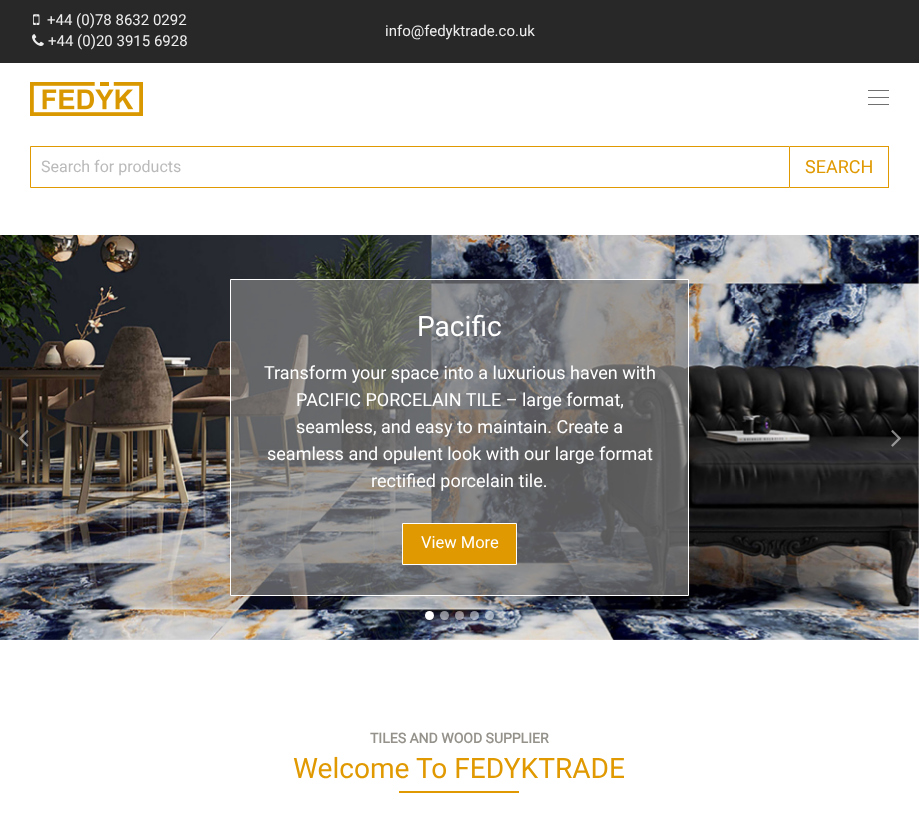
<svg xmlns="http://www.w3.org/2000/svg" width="919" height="838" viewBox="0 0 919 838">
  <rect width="100%" height="100%" fill="#fff"/>
  <path d="M0 0h919v63H0z" fill="#282828"/>
  <image x="33" y="14" width="7" height="11" href="img/1.png"/>
  <image x="32" y="34" width="12" height="12" href="img/2.png"/>
  <image x="30" y="82" width="113" height="34" href="img/3.png"/>
  <path d="M868 90h21v1H868z" fill="#707070"/>
  <path d="M868 97h21v1H868z" fill="#707070"/>
  <path d="M868 104h21v1H868z" fill="#707070"/>
  <path d="M30.5 146.5h759v41H30.5z" fill="none" stroke="#e09900"/>
  <path d="M790 146h99v1H790z" fill="#e09900"/>
  <path d="M888 146h1v42H888z" fill="#e09900"/>
  <path d="M790 187h99v1H790z" fill="#e09900"/>
  <image x="0" y="235" width="919" height="405" href="img/5.png"/>
  <image x="18" y="430" width="11" height="17" href="img/4.png"/>
  <path d="M230.5 279.5h458v316H230.5z" fill="#868686a8" stroke="#fff"/>
  <path d="M402.5 523.5h114v41H402.5z" fill="#e09900" stroke="#fff"/>
  <image x="891" y="430" width="10" height="17" href="img/6.png"/>
  <circle cx="429.5" cy="615.5" r="4.5" fill="#fff"/>
  <circle cx="444.5" cy="615.5" r="4.5" fill="#ffffff80"/>
  <circle cx="459.5" cy="615.5" r="4.5" fill="#ffffff80"/>
  <circle cx="474.5" cy="615.5" r="4.5" fill="#ffffff80"/>
  <circle cx="489.5" cy="615.5" r="4.5" fill="#ffffff80"/>
  <path d="M399 791h120v2H399z" fill="#e09900"/>
  <g font-family="Roboto" font-size="15" fill="#eee">
    <text x="47" y="25">+44 (0)78 8632 0292</text>
    <text x="48" y="46">+44 (0)20 3915 6928</text>
    <text x="385" y="36">info@fedyktrade.co.uk</text>
  </g>
  <text x="41" y="172" font-family="Roboto" font-size="16" fill="#bababa">Search for products</text>
  <text x="805" y="173" font-family="Roboto" font-size="18" fill="#e09900">SEARCH</text>
  <text x="417" y="336" font-family="Roboto" font-size="28.1" fill="#fff">Pacific</text>
  <g font-family="Roboto" font-size="18" fill="#fff">
    <text x="264" y="379">Transform your space into a luxurious haven with</text>
    <text x="296" y="406">PACIFIC PORCELAIN TILE – large format,</text>
    <text x="296" y="433">seamless, and easy to maintain. Create a</text>
    <text x="267" y="460">seamless and opulent look with our large format</text>
    <text x="371" y="487">rectified porcelain tile.</text>
  </g>
  <text x="421" y="548" font-family="Roboto" font-size="16.5" fill="#fff">View More</text>
  <text x="370" y="743" font-family="Roboto" font-size="14" font-weight="bold" fill="#95928b">TILES AND WOOD SUPPLIER</text>
  <text x="293" y="778" font-family="Roboto" font-size="28.1" fill="#e09900">Welcome To FEDYKTRADE</text>
</svg>
